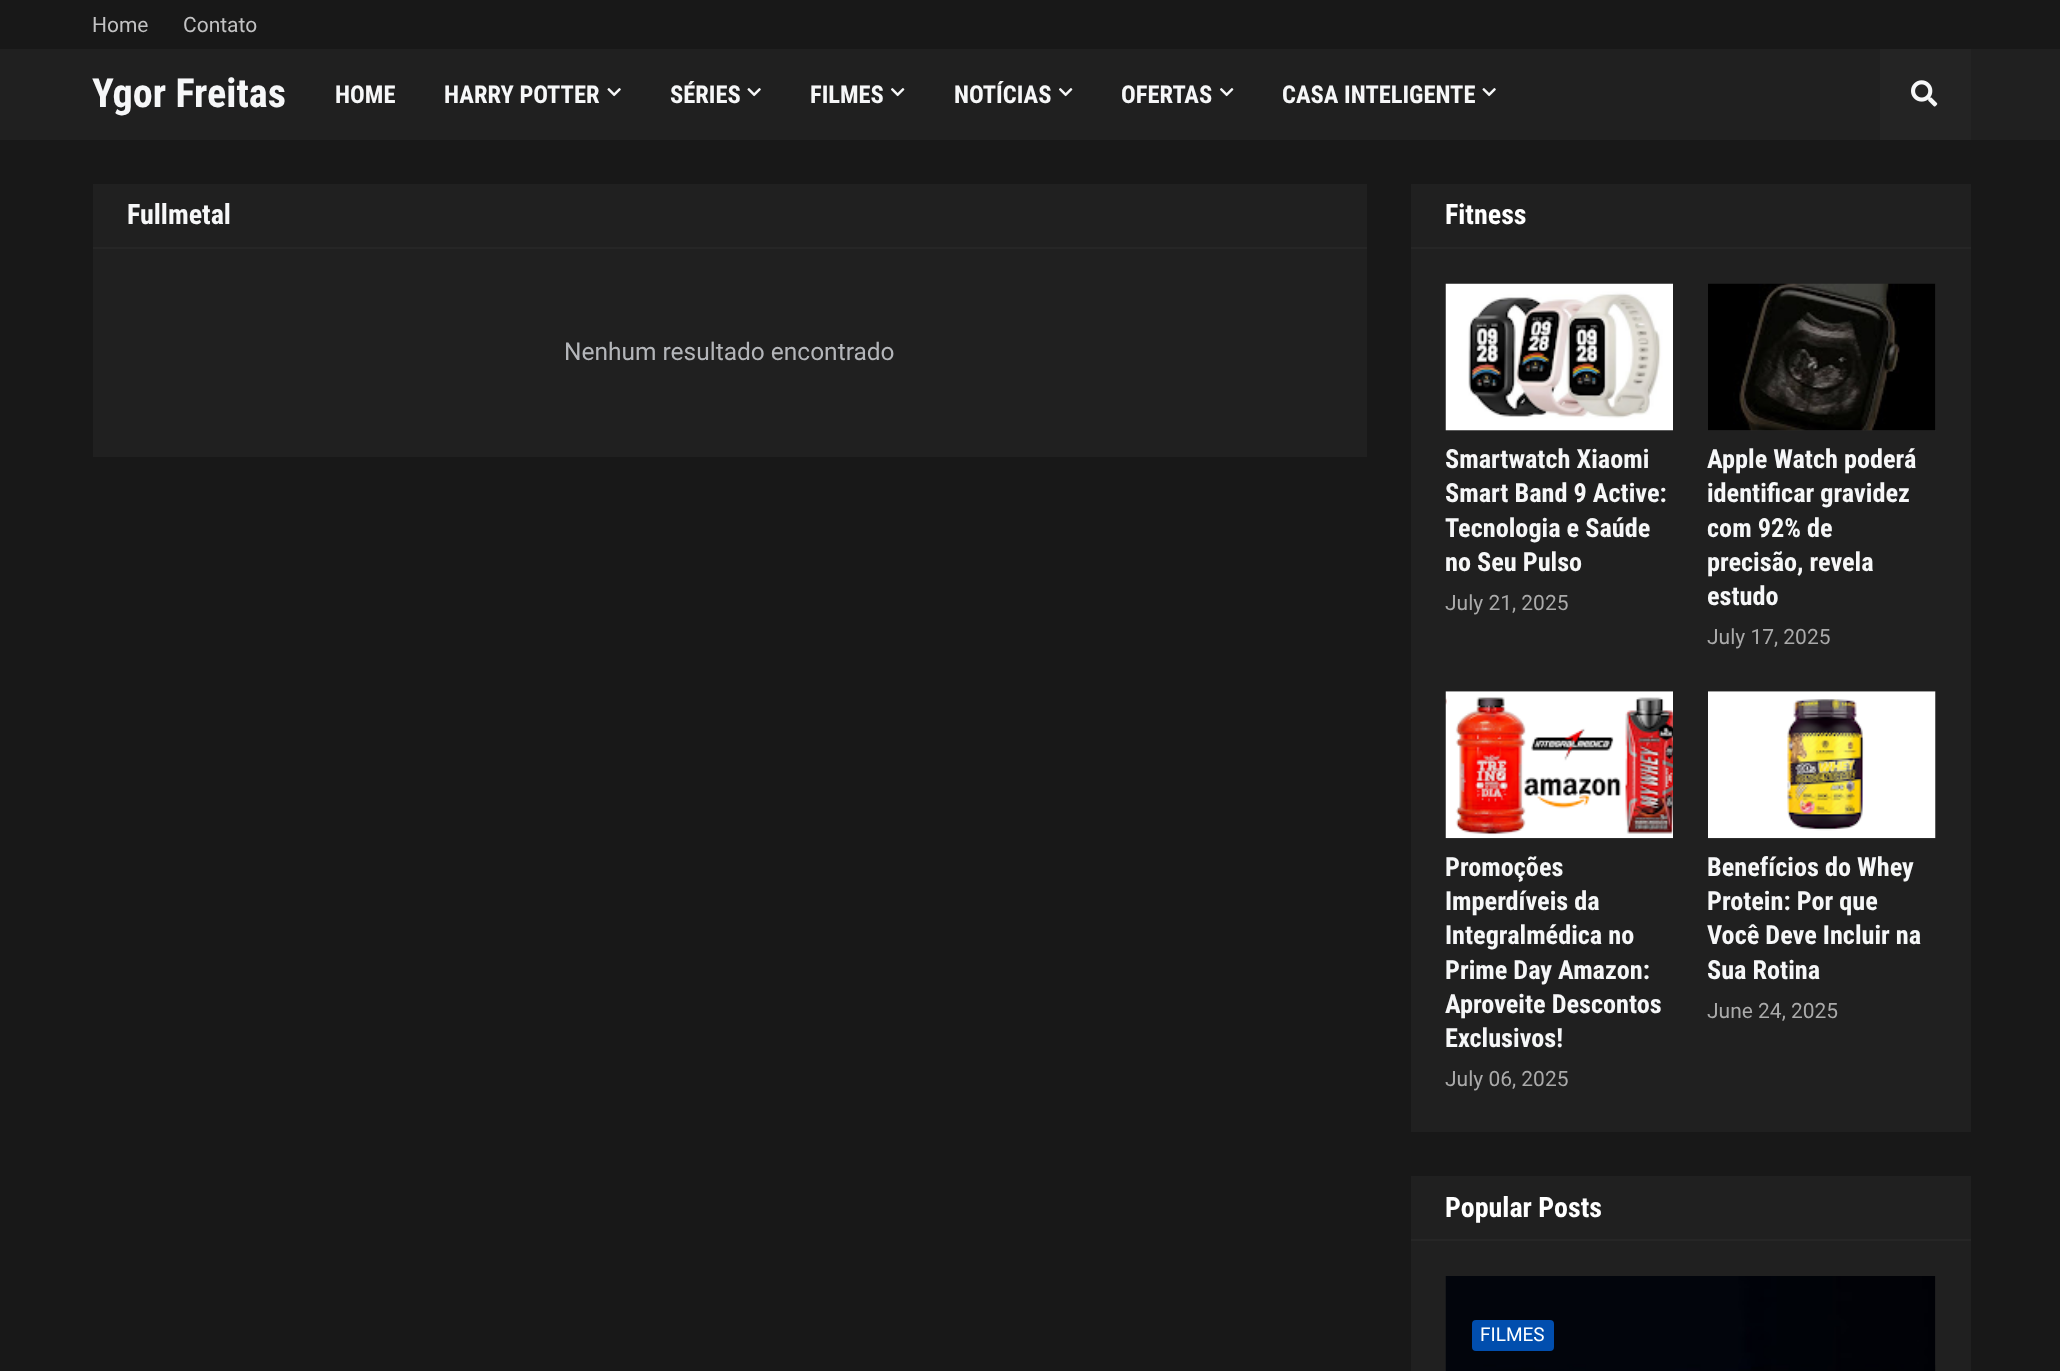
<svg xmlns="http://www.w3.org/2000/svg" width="2060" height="1371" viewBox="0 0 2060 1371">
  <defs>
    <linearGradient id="g1" gradientUnits="userSpaceOnUse" x1="1691" y1="1293" x2="1691" y2="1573"><stop offset="0.1" stop-color="#000" stop-opacity="0"/><stop offset="1" stop-color="#000" stop-opacity="0.5"/></linearGradient>
  </defs>
  <rect width="100%" height="100%" fill="#181818"/>
  <path d="M0 49h2060v91H0z" fill="#202020"/>
  <image x="607" y="88" width="14" height="9" href="img/1.png"/>
  <image x="747" y="88" width="14" height="9" href="img/1.png"/>
  <image x="891" y="88" width="14" height="9" href="img/2.png"/>
  <image x="1059" y="88" width="14" height="9" href="img/2.png"/>
  <image x="1220" y="88" width="14" height="9" href="img/2.png"/>
  <image x="1482" y="88" width="14" height="9" href="img/1.png"/>
  <path d="M1880 49h91v91H1880z" fill="#242424"/>
  <image x="1911" y="80" width="27" height="27" href="img/3.png"/>
  <path d="M93 184h1274v273H93z" fill="#202020"/>
  <path d="M93 247h1274v2H93z" fill="#262626"/>
  <path d="M1411 184h560v948H1411z" fill="#202020"/>
  <path d="M1411 247h560v2H1411z" fill="#262626"/>
  <path d="M1446 430h227v1H1446z" fill="#262626"/>
  <image x="1445" y="283" width="228" height="148" href="img/4.png"/>
  <path d="M1708 284h228v147H1708z" fill="#262626"/>
  <image x="1708" y="283" width="228" height="148" href="img/5.png"/>
  <path d="M1446 691h227v1H1446z" fill="#262626"/>
  <image x="1445" y="691" width="228" height="148" href="img/6.png"/>
  <path d="M1708 691h228v147H1708z" fill="#262626"/>
  <image x="1708" y="691" width="228" height="148" href="img/7.png"/>
  <path d="M1411 1176h560v195H1411z" fill="#202020"/>
  <path d="M1411 1239h560v2H1411z" fill="#262626"/>
  <path d="M1935 1276h1v95H1935z" fill="#262626"/>
  <image x="1445" y="1276" width="491" height="95" href="img/8.png"/>
  <path d="M1935 1365h1v6H1935z" fill="url(#g1)"/>
  <rect x="1472" y="1320" width="82" height="31" rx="4" fill="#014eae"/>
  <g font-family="Roboto" font-size="21" fill="#c2c2c3">
    <text x="92" y="32">Home</text>
    <text x="183" y="32">Contato</text>
  </g>
  <text x="92" y="107" font-family="Roboto Condensed" font-size="40.25" font-weight="bold" fill="#f6f7f8">Ygor Freitas</text>
  <g font-family="Roboto Condensed" font-size="24.5" font-weight="bold" fill="#f6f7f8">
    <text x="335" y="103">HOME</text>
    <text x="444" y="103">HARRY POTTER</text>
    <text x="670" y="103">SÉRIES</text>
    <text x="810" y="103">FILMES</text>
    <text x="954" y="103">NOTÍCIAS</text>
    <text x="1121" y="103">OFERTAS</text>
    <text x="1282" y="103">CASA INTELIGENTE</text>
  </g>
  <text x="127" y="224" font-family="Roboto Condensed" font-size="28" font-weight="bold" fill="#f6f7f8">Fullmetal</text>
  <text x="564" y="360" font-family="Roboto" font-size="24.5" fill="#b4b6ba">Nenhum resultado encontrado</text>
  <text x="1445" y="224" font-family="Roboto Condensed" font-size="28" font-weight="bold" fill="#fff">Fitness</text>
  <g font-family="Roboto Condensed" font-size="26.25" font-weight="bold" fill="#f6f7f8">
    <text x="1445" y="468">Smartwatch Xiaomi</text>
    <text x="1445" y="502">Smart Band 9 Active:</text>
    <text x="1445" y="537">Tecnologia e Saúde</text>
    <text x="1445" y="571">no Seu Pulso</text>
  </g>
  <text x="1445" y="610" font-family="Roboto" font-size="21" fill="#aaa">July 21, 2025</text>
  <g font-family="Roboto Condensed" font-size="26.25" font-weight="bold" fill="#f6f7f8">
    <text x="1707" y="468">Apple Watch poderá</text>
    <text x="1707" y="502">identificar gravidez</text>
    <text x="1707" y="537">com 92% de</text>
    <text x="1707" y="571">precisão, revela</text>
    <text x="1707" y="605">estudo</text>
  </g>
  <text x="1707" y="644" font-family="Roboto" font-size="21" fill="#aaa">July 17, 2025</text>
  <g font-family="Roboto Condensed" font-size="26.25" font-weight="bold" fill="#f6f7f8">
    <text x="1445" y="876">Promoções</text>
    <text x="1445" y="910">Imperdíveis da</text>
    <text x="1445" y="944">Integralmédica no</text>
    <text x="1445" y="979">Prime Day Amazon:</text>
    <text x="1445" y="1013">Aproveite Descontos</text>
    <text x="1445" y="1047">Exclusivos!</text>
  </g>
  <text x="1445" y="1086" font-family="Roboto" font-size="21" fill="#aaa">July 06, 2025</text>
  <g font-family="Roboto Condensed" font-size="26.25" font-weight="bold" fill="#f6f7f8">
    <text x="1707" y="876">Benefícios do Whey</text>
    <text x="1707" y="910">Protein: Por que</text>
    <text x="1707" y="944">Você Deve Incluir na</text>
    <text x="1707" y="979">Sua Rotina</text>
  </g>
  <text x="1707" y="1018" font-family="Roboto" font-size="21" fill="#aaa">June 24, 2025</text>
  <text x="1445" y="1217" font-family="Roboto Condensed" font-size="28" font-weight="bold" fill="#fff">Popular Posts</text>
  <text x="1480" y="1341" font-family="Roboto" font-size="19" fill="#fff">FILMES</text>
</svg>
